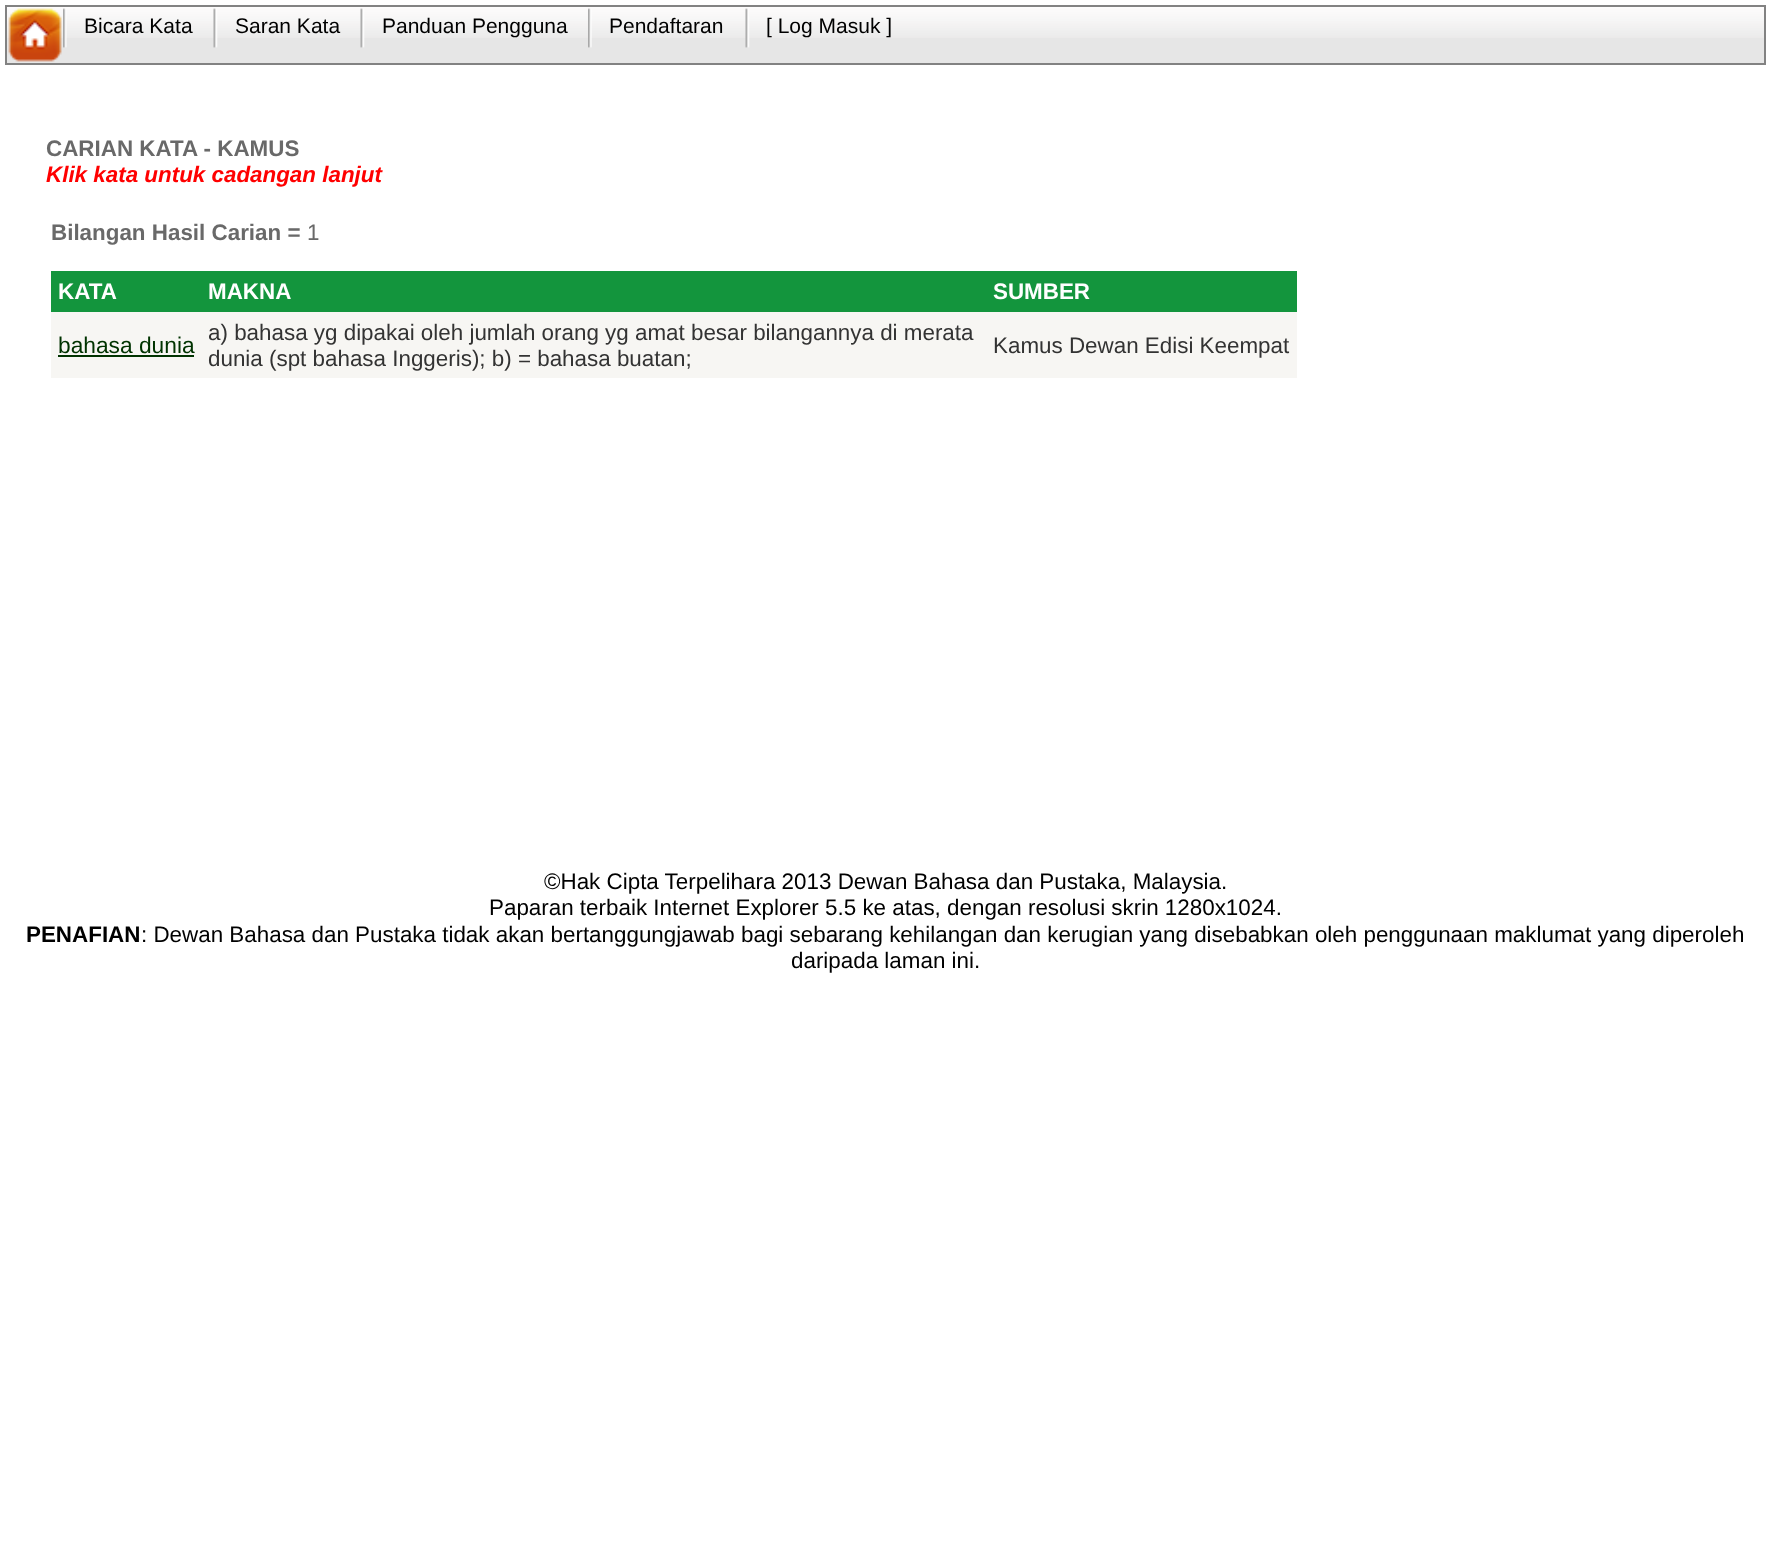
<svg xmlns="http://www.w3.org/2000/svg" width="1770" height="1548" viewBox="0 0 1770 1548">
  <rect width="100%" height="100%" fill="#fff"/>
  <path d="M7 38h1757v25H7z" fill="#e6e6e6"/>
  <image x="7" y="7" width="1757" height="31" href="img/1.png"/>
  <path d="M6 6h1759v58H6z" fill="none" stroke="#828282" stroke-width="2"/>
  <image x="8" y="8" width="54" height="54" href="img/2.png"/>
  <image x="63" y="8" width="4" height="40" href="img/3.png"/>
  <image x="213" y="8" width="5" height="40" href="img/4.png"/>
  <image x="360" y="8" width="5" height="40" href="img/4.png"/>
  <image x="588" y="8" width="4" height="40" href="img/5.png"/>
  <image x="745" y="8" width="5" height="40" href="img/4.png"/>
  <path d="M51 271h1246v41H51z" fill="#13953d"/>
  <path d="M51 312h1246v66H51z" fill="#f7f6f3"/>
  <path d="M58 355h136v2H58z" fill="#030"/>
  <g font-family="Liberation Sans" font-size="21" fill="#000">
    <text x="84" y="33">Bicara Kata</text>
    <text x="235" y="33">Saran Kata</text>
    <text x="382" y="33">Panduan Pengguna</text>
    <text x="609" y="33">Pendaftaran</text>
    <text x="766" y="33">[ Log Masuk ]</text>
  </g>
  <text x="46" y="156" font-family="Liberation Sans" font-size="22.4" font-weight="bold" fill="#696969">CARIAN KATA - KAMUS</text>
  <text x="46" y="182" font-family="Liberation Sans" font-size="22.4" font-weight="bold" font-style="italic" fill="#f00">Klik kata untuk cadangan lanjut</text>
  <text x="51" y="240" font-family="Liberation Sans" font-size="22.4" font-weight="bold" fill="#696969">Bilangan Hasil Carian =</text>
  <text x="307" y="240" font-family="Liberation Sans" font-size="22.4" fill="#696969">1</text>
  <g font-family="Liberation Sans" font-size="22.4" font-weight="bold" fill="#fff">
    <text x="58" y="299">KATA</text>
    <text x="208" y="299">MAKNA</text>
    <text x="993" y="299">SUMBER</text>
  </g>
  <text x="58" y="353" font-family="Liberation Sans" font-size="22.75" fill="#030">bahasa dunia</text>
  <g font-family="Liberation Sans" font-size="22.4" fill="#333">
    <text x="208" y="340">a) bahasa yg dipakai oleh jumlah orang yg amat besar bilangannya di merata</text>
    <text x="208" y="366">dunia (spt bahasa Inggeris); b) = bahasa buatan;</text>
    <text x="993" y="353">Kamus Dewan Edisi Keempat</text>
  </g>
  <g font-family="Liberation Sans" font-size="22.4" fill="#000">
    <text x="544" y="889">©Hak Cipta Terpelihara 2013 Dewan Bahasa dan Pustaka, Malaysia.</text>
    <text x="489" y="915">Paparan terbaik Internet Explorer 5.5 ke atas, dengan resolusi skrin 1280x1024.</text>
  </g>
  <text x="26" y="942" font-family="Liberation Sans" font-size="22.4" font-weight="bold" fill="#000">PENAFIAN</text>
  <g font-family="Liberation Sans" font-size="22.4" fill="#000">
    <text x="141" y="942">: Dewan Bahasa dan Pustaka tidak akan bertanggungjawab bagi sebarang kehilangan dan kerugian yang disebabkan oleh penggunaan maklumat yang diperoleh</text>
    <text x="791" y="968">daripada laman ini.</text>
  </g>
</svg>
